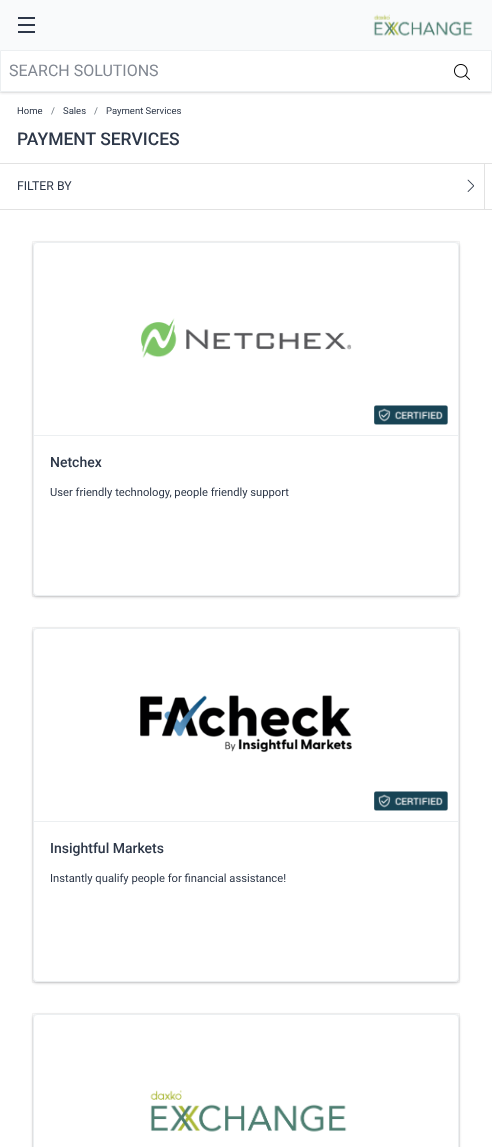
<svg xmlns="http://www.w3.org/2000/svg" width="492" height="1147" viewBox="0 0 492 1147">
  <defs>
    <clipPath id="clip1"><path d="M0 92h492v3H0z"/></clipPath>
    <clipPath id="clip2"><path d="M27 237H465V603H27ZM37 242H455C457 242 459 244 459 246V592C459 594 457 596 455 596H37C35 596 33 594 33 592V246C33 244 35 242 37 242Z" clip-rule="evenodd"/></clipPath>
    <clipPath id="clip3"><path d="M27 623H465V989H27ZM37 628H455C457 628 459 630 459 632V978C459 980 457 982 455 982H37C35 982 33 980 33 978V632C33 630 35 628 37 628Z" clip-rule="evenodd"/></clipPath>
    <clipPath id="clip4"><path d="M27 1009H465V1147H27ZM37 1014H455C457 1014 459 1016 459 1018V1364C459 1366 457 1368 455 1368H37C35 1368 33 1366 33 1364V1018C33 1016 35 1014 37 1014Z" clip-rule="evenodd"/></clipPath>
  </defs>
  <rect width="100%" height="100%" fill="#fff"/>
  <g clip-path="url(#clip1)">
    <path d="M0 51h492v42H0z" fill="#3f3f4426" filter="blur(1.5px)"/>
  </g>
  <path d="M-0.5 49.5h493v43H-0.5z" fill="none" stroke="#3f3f440d"/>
  <path d="M0 0h492v50H0z" fill="#f9fafb"/>
  <path d="M18 17h17v2H18z" fill="#2d3748"/>
  <path d="M18 24h17v2H18z" fill="#2d3748"/>
  <path d="M18 31h17v2H18z" fill="#2d3748"/>
  <image x="373" y="14" width="100" height="22" href="img/1.png"/>
  <path d="M0.5 50.5h491v41H0.5z" fill="none" stroke="#eceff1"/>
  <image x="454" y="64" width="16" height="16" href="img/2.png"/>
  <path d="M0 163h492v1H0z" fill="#e2e2e2"/>
  <path d="M0 209h492v1H0z" fill="#e2e2e2"/>
  <path d="M484 164h1v45H484z" fill="#e2e2e2"/>
  <image x="467" y="179" width="7" height="13" href="img/3.png"/>
  <g clip-path="url(#clip2)">
    <rect x="33" y="243" width="426" height="354" rx="4" fill="#3f3f444d" filter="blur(1.5px)"/>
  </g>
  <path d="M32.5 241.5h427v355H32.5z" fill="none" stroke="#3f3f440d"/>
  <rect x="33.5" y="242.5" width="425" height="353" rx="3.5" fill="none" stroke="#eceff1"/>
  <image x="141" y="318" width="211" height="40" href="img/4.png"/>
  <image x="374" y="405" width="74" height="20" href="img/5.png"/>
  <path d="M34 435h424v1H34z" fill="#eceff1"/>
  <g clip-path="url(#clip3)">
    <rect x="33" y="629" width="426" height="354" rx="4" fill="#3f3f444d" filter="blur(1.5px)"/>
  </g>
  <path d="M32.5 627.5h427v355H32.5z" fill="none" stroke="#3f3f440d"/>
  <rect x="33.5" y="628.5" width="425" height="353" rx="3.5" fill="none" stroke="#eceff1"/>
  <image x="140" y="695" width="212" height="58" href="img/6.png"/>
  <image x="374" y="791" width="74" height="20" href="img/5.png"/>
  <path d="M34 821h424v1H34z" fill="#eceff1"/>
  <g clip-path="url(#clip4)">
    <rect x="33" y="1015" width="426" height="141" rx="4" fill="#3f3f444d" filter="blur(1.5px)"/>
  </g>
  <path d="M32.5 1013.5h427v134H32.5z" fill="none" stroke="#3f3f440d"/>
  <rect x="33.5" y="1014.5" width="425" height="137" rx="3.5" fill="none" stroke="#eceff1"/>
  <image x="150" y="1090" width="197" height="42" href="img/7.png"/>
  <text x="9" y="76" font-family="Roboto" font-size="16" fill="#818791">SEARCH SOLUTIONS</text>
  <text x="17" y="114" font-family="Roboto" font-size="9.5" fill="#2d3748">Home</text>
  <text x="51" y="114" font-family="Roboto" font-size="9.5" fill="#6c757d">/</text>
  <text x="63" y="114" font-family="Roboto" font-size="9.5" fill="#2d3748">Sales</text>
  <text x="94" y="114" font-family="Roboto" font-size="9.5" fill="#6c757d">/</text>
  <text x="106" y="114" font-family="Roboto" font-size="9.5" fill="#2d3748">Payment Services</text>
  <text x="17" y="145" font-family="Roboto" font-size="17.5" font-weight="500" fill="#2d3748">PAYMENT SERVICES</text>
  <text x="17" y="190" font-family="Roboto" font-size="12.25" fill="#2d3748">FILTER BY</text>
  <text x="50" y="467" font-family="Roboto" font-size="14" font-weight="500" fill="#2d3748">Netchex</text>
  <text x="50" y="496" font-family="Roboto" font-size="11.2" fill="#2d3748">User friendly technology, people friendly support</text>
  <text x="50" y="853" font-family="Roboto" font-size="14" font-weight="500" fill="#2d3748">Insightful Markets</text>
  <text x="50" y="882" font-family="Roboto" font-size="11.2" fill="#2d3748">Instantly qualify people for financial assistance!</text>
</svg>
